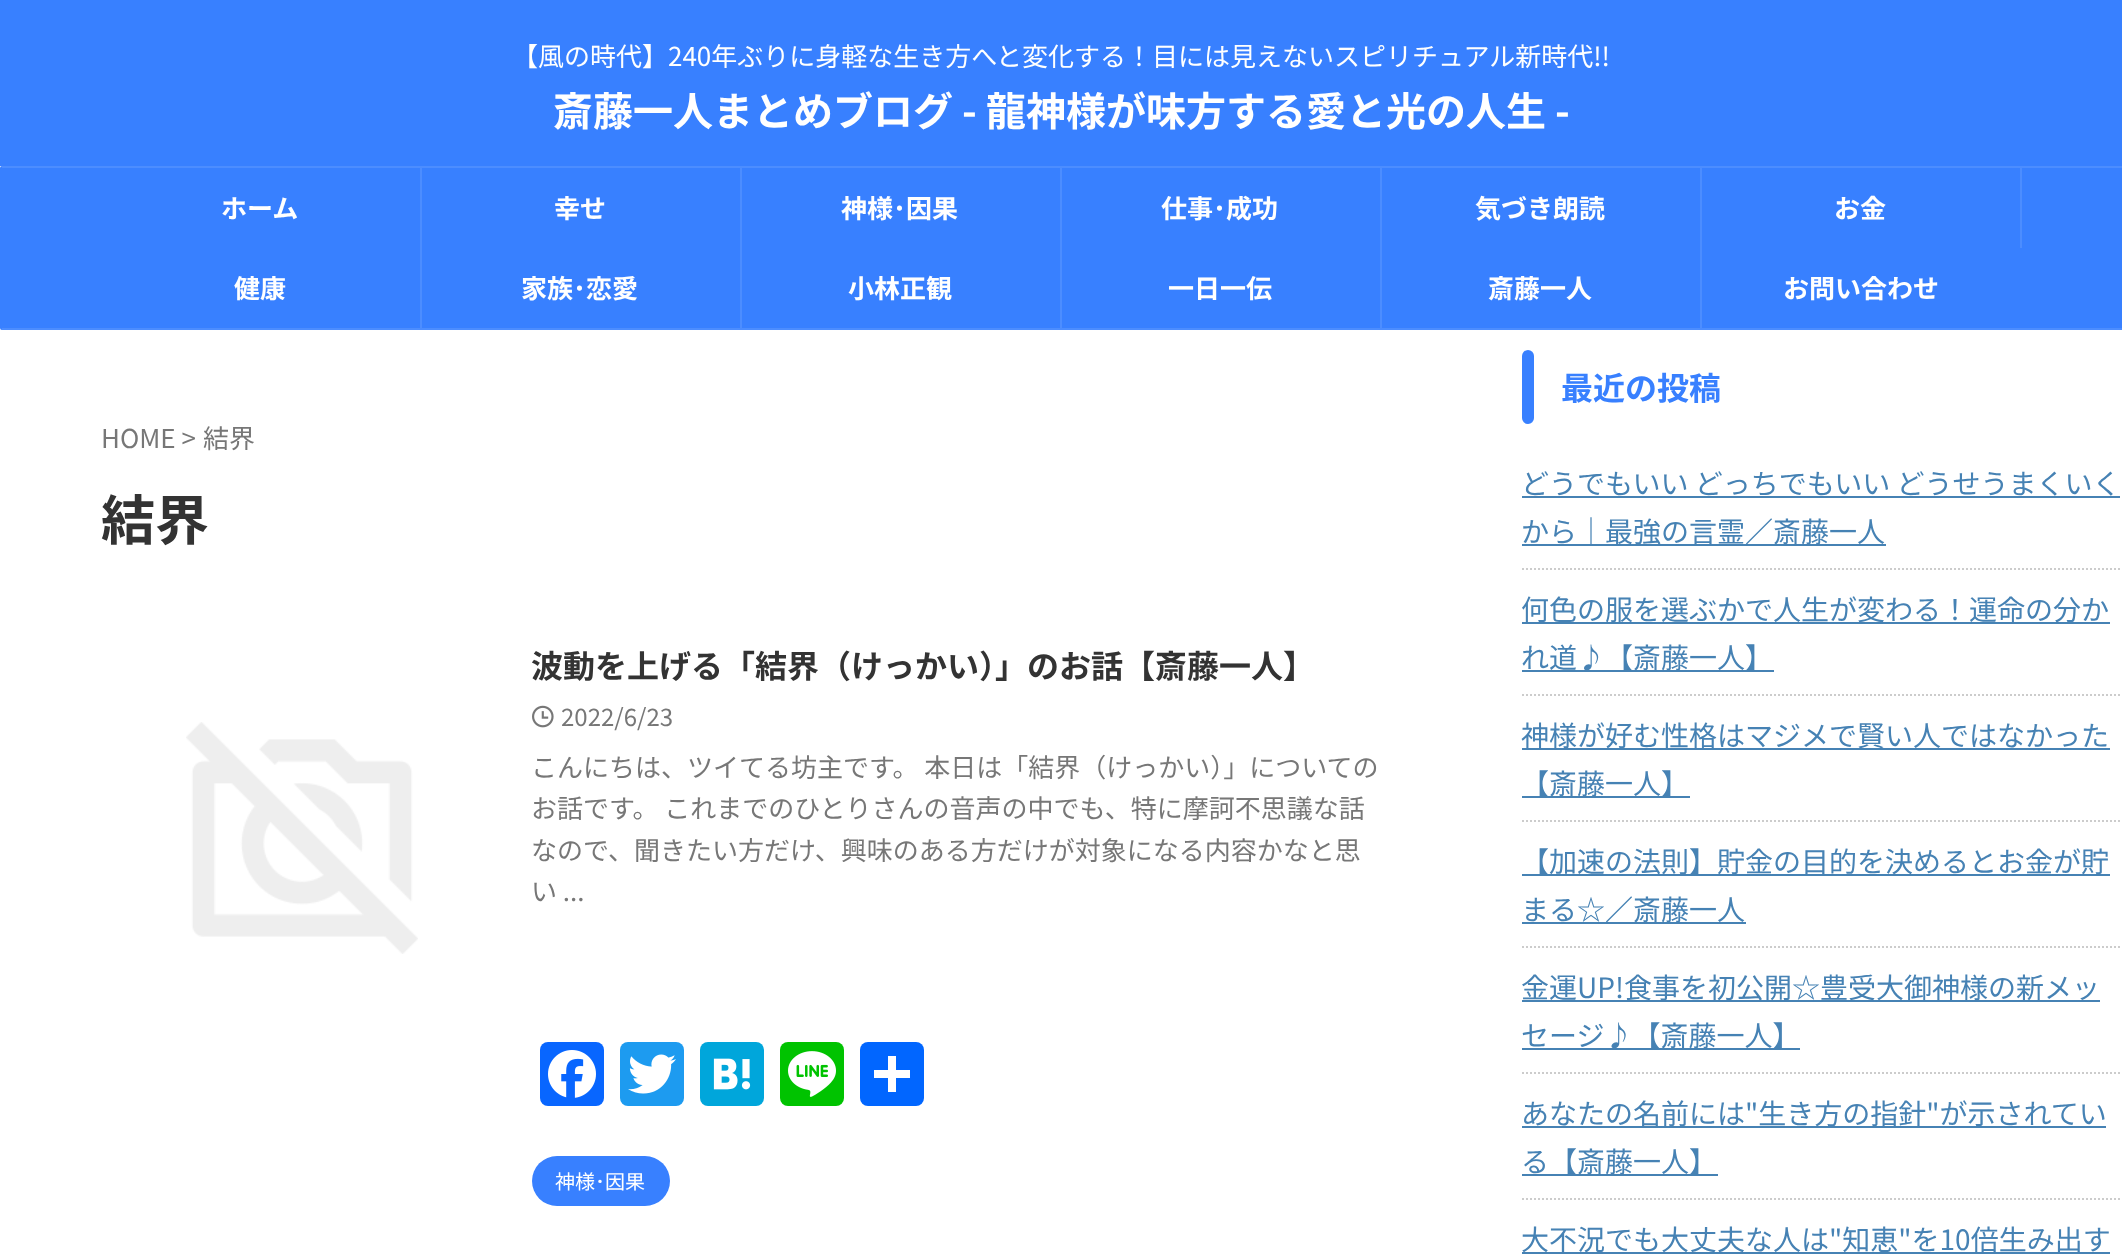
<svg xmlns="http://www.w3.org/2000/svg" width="2122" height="1254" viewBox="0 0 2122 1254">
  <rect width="100%" height="100%" fill="#fff"/>
  <path d="M0 0h2122v166H0z" fill="#3880ff"/>
  <rect y="166" width="2122" height="164" rx="2" fill="#3880ff"/>
  <path d="M2 166h2120v2H2z" fill="#4c8dff"/>
  <path d="M2 328h2120v2H2z" fill="#4c8dff"/>
  <path d="M420 168h2v160H420z" fill="#4c8dff"/>
  <path d="M740 168h2v160H740z" fill="#4c8dff"/>
  <path d="M1060 168h2v160H1060z" fill="#4c8dff"/>
  <path d="M1380 168h2v160H1380z" fill="#4c8dff"/>
  <path d="M1700 168h2v160H1700z" fill="#4c8dff"/>
  <path d="M2020 168h2v80H2020z" fill="#4c8dff"/>
  <image x="186" y="722" width="232" height="232" href="img/1.png"/>
  <image x="532" y="705" width="22" height="23" href="img/2.png"/>
  <rect x="540" y="1042" width="64" height="64" rx="8" fill="#0866ff"/>
  <image x="548" y="1050" width="48" height="48" href="img/3.png"/>
  <rect x="620" y="1042" width="64" height="64" rx="8" fill="#1d9bf0"/>
  <image x="628" y="1054" width="48" height="40" href="img/4.png"/>
  <rect x="700" y="1042" width="64" height="64" rx="8" fill="#00a6db"/>
  <image x="713" y="1058" width="38" height="32" href="img/5.png"/>
  <rect x="780" y="1042" width="64" height="64" rx="8" fill="#00c300"/>
  <image x="788" y="1051" width="48" height="46" href="img/6.png"/>
  <rect x="860" y="1042" width="64" height="64" rx="8" fill="#0166ff"/>
  <path d="M888 1056h8v36H888z" fill="#fff"/>
  <path d="M874 1070h36v8H874z" fill="#fff"/>
  <rect x="532" y="1156" width="138" height="50" rx="25" fill="#3880ff"/>
  <rect x="1522" y="350" width="12" height="74" rx="6" fill="#3880ff"/>
  <path d="M1522 569H2122" fill="none" stroke="#ccc" stroke-width="2" stroke-dasharray="2 2"/>
  <path d="M1522 496h598v2H1522z" fill="#4682b4"/>
  <path d="M1522 544h364v2H1522z" fill="#4682b4"/>
  <path d="M1522 695H2122" fill="none" stroke="#ccc" stroke-width="2" stroke-dasharray="2 2"/>
  <path d="M1522 622h588v2H1522z" fill="#4682b4"/>
  <path d="M1522 670h252v2H1522z" fill="#4682b4"/>
  <path d="M1522 821H2122" fill="none" stroke="#ccc" stroke-width="2" stroke-dasharray="2 2"/>
  <path d="M1522 748h588v2H1522z" fill="#4682b4"/>
  <path d="M1522 796h168v2H1522z" fill="#4682b4"/>
  <path d="M1522 947H2122" fill="none" stroke="#ccc" stroke-width="2" stroke-dasharray="2 2"/>
  <path d="M1522 874h588v2H1522z" fill="#4682b4"/>
  <path d="M1522 922h224v2H1522z" fill="#4682b4"/>
  <path d="M1522 1073H2122" fill="none" stroke="#ccc" stroke-width="2" stroke-dasharray="2 2"/>
  <path d="M1522 1000h578v2H1522z" fill="#4682b4"/>
  <path d="M1522 1048h278v2H1522z" fill="#4682b4"/>
  <path d="M1522 1199H2122" fill="none" stroke="#ccc" stroke-width="2" stroke-dasharray="2 2"/>
  <path d="M1522 1126h584v2H1522z" fill="#4682b4"/>
  <path d="M1522 1174h196v2H1522z" fill="#4682b4"/>
  <path d="M1522 1252h588v2H1522z" fill="#4682b4"/>
  <text x="512" y="66" font-family="Noto Sans JP" font-size="26" fill="#fff">【風の時代】240年ぶりに身軽な生き方へと変化する！目には見えないスピリチュアル新時代!!</text>
  <text x="553" y="126" font-family="Noto Sans JP" font-size="40" font-weight="bold" fill="#fff">斎藤一人まとめブログ - 龍神様が味方する愛と光の人生 -</text>
  <g font-family="Noto Sans JP" font-size="26" font-weight="bold" fill="#fff">
    <text x="221" y="218">ホーム</text>
    <text x="554" y="218">幸せ</text>
    <text x="841" y="218">神様･因果</text>
    <text x="1161" y="218">仕事･成功</text>
    <text x="1475" y="218">気づき朗読</text>
    <text x="1834" y="218">お金</text>
    <text x="234" y="298">健康</text>
    <text x="521" y="298">家族･恋愛</text>
    <text x="848" y="298">小林正観</text>
    <text x="1168" y="298">一日一伝</text>
    <text x="1488" y="298">斎藤一人</text>
    <text x="1783" y="298">お問い合わせ</text>
  </g>
  <g font-family="Noto Sans JP" font-size="26" fill="#777">
    <text x="101" y="448">HOME &gt;</text>
    <text x="203" y="448">結界</text>
  </g>
  <text x="101" y="540" font-family="Noto Sans JP" font-size="54" font-weight="bold" fill="#333">結界</text>
  <text x="531" y="678" font-family="Noto Sans JP" font-size="32" font-weight="bold" fill="#333">波動を上げる「結界（けっかい）」のお話【斎藤一人】</text>
  <text x="561" y="726" font-family="Noto Sans JP" font-size="24" fill="#777">2022/6/23</text>
  <g font-family="Noto Sans JP" font-size="26" fill="#777">
    <text x="531" y="777">こんにちは、ツイてる坊主です。 本日は「結界（けっかい）」についての</text>
    <text x="531" y="818">お話です。 これまでのひとりさんの音声の中でも、特に摩訶不思議な話</text>
    <text x="531" y="860">なので、聞きたい方だけ、興味のある方だけが対象になる内容かなと思</text>
    <text x="531" y="901">い ...</text>
  </g>
  <text x="555" y="1189" font-family="Noto Sans JP" font-size="20" fill="#fff">神様･因果</text>
  <text x="1561" y="400" font-family="Noto Sans JP" font-size="32" font-weight="bold" fill="#3880ff">最近の投稿</text>
  <g font-family="Noto Sans JP" font-size="28" fill="#4682b4">
    <text x="1521" y="494">どうでもいい どっちでもいい どうせうまくいく</text>
    <text x="1521" y="542">から｜最強の言霊／斎藤一人</text>
    <text x="1521" y="620">何色の服を選ぶかで人生が変わる！運命の分か</text>
    <text x="1521" y="668">れ道♪【斎藤一人】</text>
    <text x="1521" y="746">神様が好む性格はマジメで賢い人ではなかった</text>
    <text x="1521" y="794">【斎藤一人】</text>
    <text x="1521" y="872">【加速の法則】貯金の目的を決めるとお金が貯</text>
    <text x="1521" y="920">まる☆／斎藤一人</text>
    <text x="1521" y="998">金運UP!食事を初公開☆豊受大御神様の新メッ</text>
    <text x="1521" y="1046">セージ♪【斎藤一人】</text>
    <text x="1521" y="1124">あなたの名前には"生き方の指針"が示されてい</text>
    <text x="1521" y="1172">る【斎藤一人】</text>
    <text x="1521" y="1250">大不況でも大丈夫な人は"知恵"を10倍生み出す</text>
  </g>
</svg>
